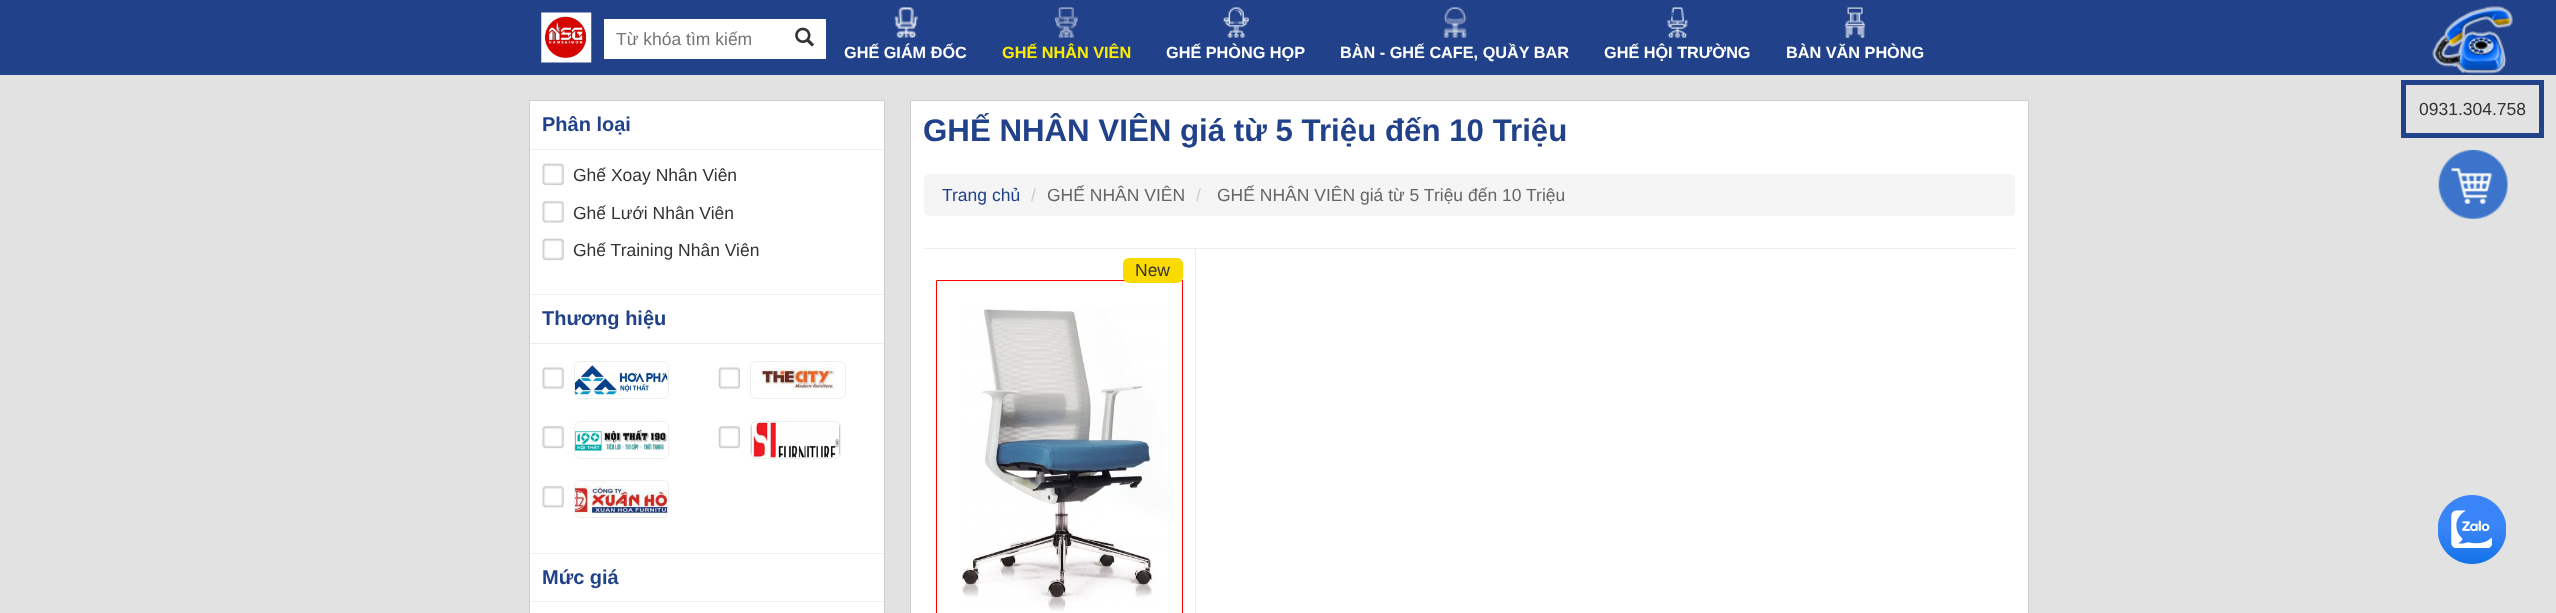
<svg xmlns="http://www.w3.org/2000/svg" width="2556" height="613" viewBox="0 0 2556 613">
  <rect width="100%" height="100%" fill="#e2e2e2"/>
  <path d="M0 0h2556v75H0z" fill="#21428a"/>
  <image x="541" y="12" width="51" height="51" href="img/1.png"/>
  <path d="M604 19h222v40H604z" fill="#fff"/>
  <image x="795" y="27" width="19" height="20" href="img/2.png"/>
  <image x="894" y="7" width="25" height="31" href="img/3.png"/>
  <image x="1054" y="7" width="24" height="31" href="img/4.png"/>
  <image x="1223" y="7" width="26" height="31" href="img/5.png"/>
  <image x="1443" y="7" width="24" height="31" href="img/6.png"/>
  <image x="1667" y="7" width="21" height="31" href="img/7.png"/>
  <image x="1844" y="7" width="22" height="31" href="img/8.png"/>
  <image x="2432" y="6" width="81" height="68" href="img/9.png"/>
  <path d="M2403.5 82.5h138v53H2403.5z" fill="none" stroke="#21428a" stroke-width="5"/>
  <image x="2438" y="150" width="70" height="69" href="img/10.png"/>
  <path d="M529.5 100.5h355v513H529.5z" fill="#fff" stroke="#cecece"/>
  <path d="M530 149h354v1H530z" fill="#eee"/>
  <path d="M530 294h354v1H530z" fill="#eee"/>
  <image x="542" y="163" width="22" height="23" href="img/11.png"/>
  <image x="542" y="201" width="22" height="22" href="img/12.png"/>
  <image x="542" y="238" width="22" height="23" href="img/11.png"/>
  <path d="M530 343h354v1H530z" fill="#eee"/>
  <path d="M530 553h354v1H530z" fill="#eee"/>
  <image x="542" y="367" width="22" height="22" href="img/13.png"/>
  <rect x="574.5" y="361.5" width="94" height="37" rx="5.5" fill="none" stroke="#eee"/>
  <image x="575" y="365" width="93" height="30" href="img/14.png"/>
  <image x="718" y="367" width="22" height="22" href="img/15.png"/>
  <rect x="750.5" y="361.5" width="95" height="37" rx="5.5" fill="none" stroke="#eee"/>
  <image x="760" y="363" width="76" height="28" href="img/16.png"/>
  <image x="542" y="426" width="22" height="23" href="img/17.png"/>
  <rect x="574.5" y="421.5" width="94" height="37" rx="5.5" fill="none" stroke="#eee"/>
  <image x="575" y="429" width="92" height="22" href="img/18.png"/>
  <image x="718" y="426" width="22" height="23" href="img/19.png"/>
  <rect x="750.5" y="421.5" width="90" height="37" rx="5.5" fill="none" stroke="#eee"/>
  <image x="751" y="422" width="89" height="36" href="img/20.png"/>
  <image x="542" y="486" width="22" height="22" href="img/21.png"/>
  <rect x="574.5" y="480.5" width="94" height="37" rx="5.5" fill="none" stroke="#eee"/>
  <image x="575" y="481" width="93" height="35" href="img/22.png"/>
  <path d="M530 601h354v1H530z" fill="#eee"/>
  <path d="M910.5 100.5h1118v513H910.5z" fill="#fff" stroke="#cecece"/>
  <path d="M924 248h1091v1H924z" fill="#eee"/>
  <rect x="924" y="174" width="1091" height="42" rx="5" fill="#f5f5f5"/>
  <path d="M1195 249h1v364H1195z" fill="#eee"/>
  <path d="M936.5 280.5h246v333H936.5z" fill="none" stroke="#f00"/>
  <rect x="1123" y="258" width="60" height="25" rx="6" fill="#fbda00"/>
  <image x="962" y="308" width="213" height="304" href="img/23.png"/>
  <image x="2438" y="495" width="68" height="69" href="img/24.png"/>
  <text x="616" y="45" font-family="Liberation Sans" font-size="17.5" fill="#757575">Từ khóa tìm kiếm</text>
  <text x="844" y="58" font-family="Liberation Sans" font-size="16.25" font-weight="bold" fill="#fff">GHẾ GIÁM ĐỐC</text>
  <text x="1002" y="58" font-family="Liberation Sans" font-size="16.25" font-weight="bold" fill="#ffed00">GHẾ NHÂN VIÊN</text>
  <g font-family="Liberation Sans" font-size="16.25" font-weight="bold" fill="#fff">
    <text x="1166" y="58">GHẾ PHÒNG HỌP</text>
    <text x="1340" y="58">BÀN - GHẾ CAFE, QUẦY BAR</text>
    <text x="1604" y="58">GHẾ HỘI TRƯỜNG</text>
    <text x="1786" y="58">BÀN VĂN PHÒNG</text>
  </g>
  <text x="2419" y="115" font-family="Liberation Sans" font-size="17.5" fill="#333">0931.304.758</text>
  <text x="542" y="131" font-family="Liberation Sans" font-size="20" font-weight="bold" fill="#21428a">Phân loại</text>
  <g font-family="Liberation Sans" font-size="17.5" fill="#333">
    <text x="573" y="181">Ghế Xoay Nhân Viên</text>
    <text x="573" y="219">Ghế Lưới Nhân Viên</text>
    <text x="573" y="256">Ghế Training Nhân Viên</text>
  </g>
  <g font-family="Liberation Sans" font-size="20" font-weight="bold" fill="#21428a">
    <text x="542" y="325">Thương hiệu</text>
    <text x="542" y="584">Mức giá</text>
  </g>
  <text x="923" y="141" font-family="Liberation Sans" font-size="31.25" font-weight="bold" fill="#21428a">GHẾ NHÂN VIÊN giá từ 5 Triệu đến 10 Triệu</text>
  <text x="942" y="201" font-family="Liberation Sans" font-size="17.5" fill="#21428a">Trang chủ</text>
  <text x="1031" y="201" font-family="Liberation Sans" font-size="17.5" fill="#ccc">/</text>
  <text x="1047" y="201" font-family="Liberation Sans" font-size="17.5" fill="#666">GHẾ NHÂN VIÊN</text>
  <text x="1196" y="201" font-family="Liberation Sans" font-size="17.5" fill="#ccc">/</text>
  <text x="1217" y="201" font-family="Liberation Sans" font-size="17.5" fill="#666">GHẾ NHÂN VIÊN giá từ 5 Triệu đến 10 Triệu</text>
  <text x="1135" y="276" font-family="Liberation Sans" font-size="17.5" fill="#333">New</text>
</svg>
